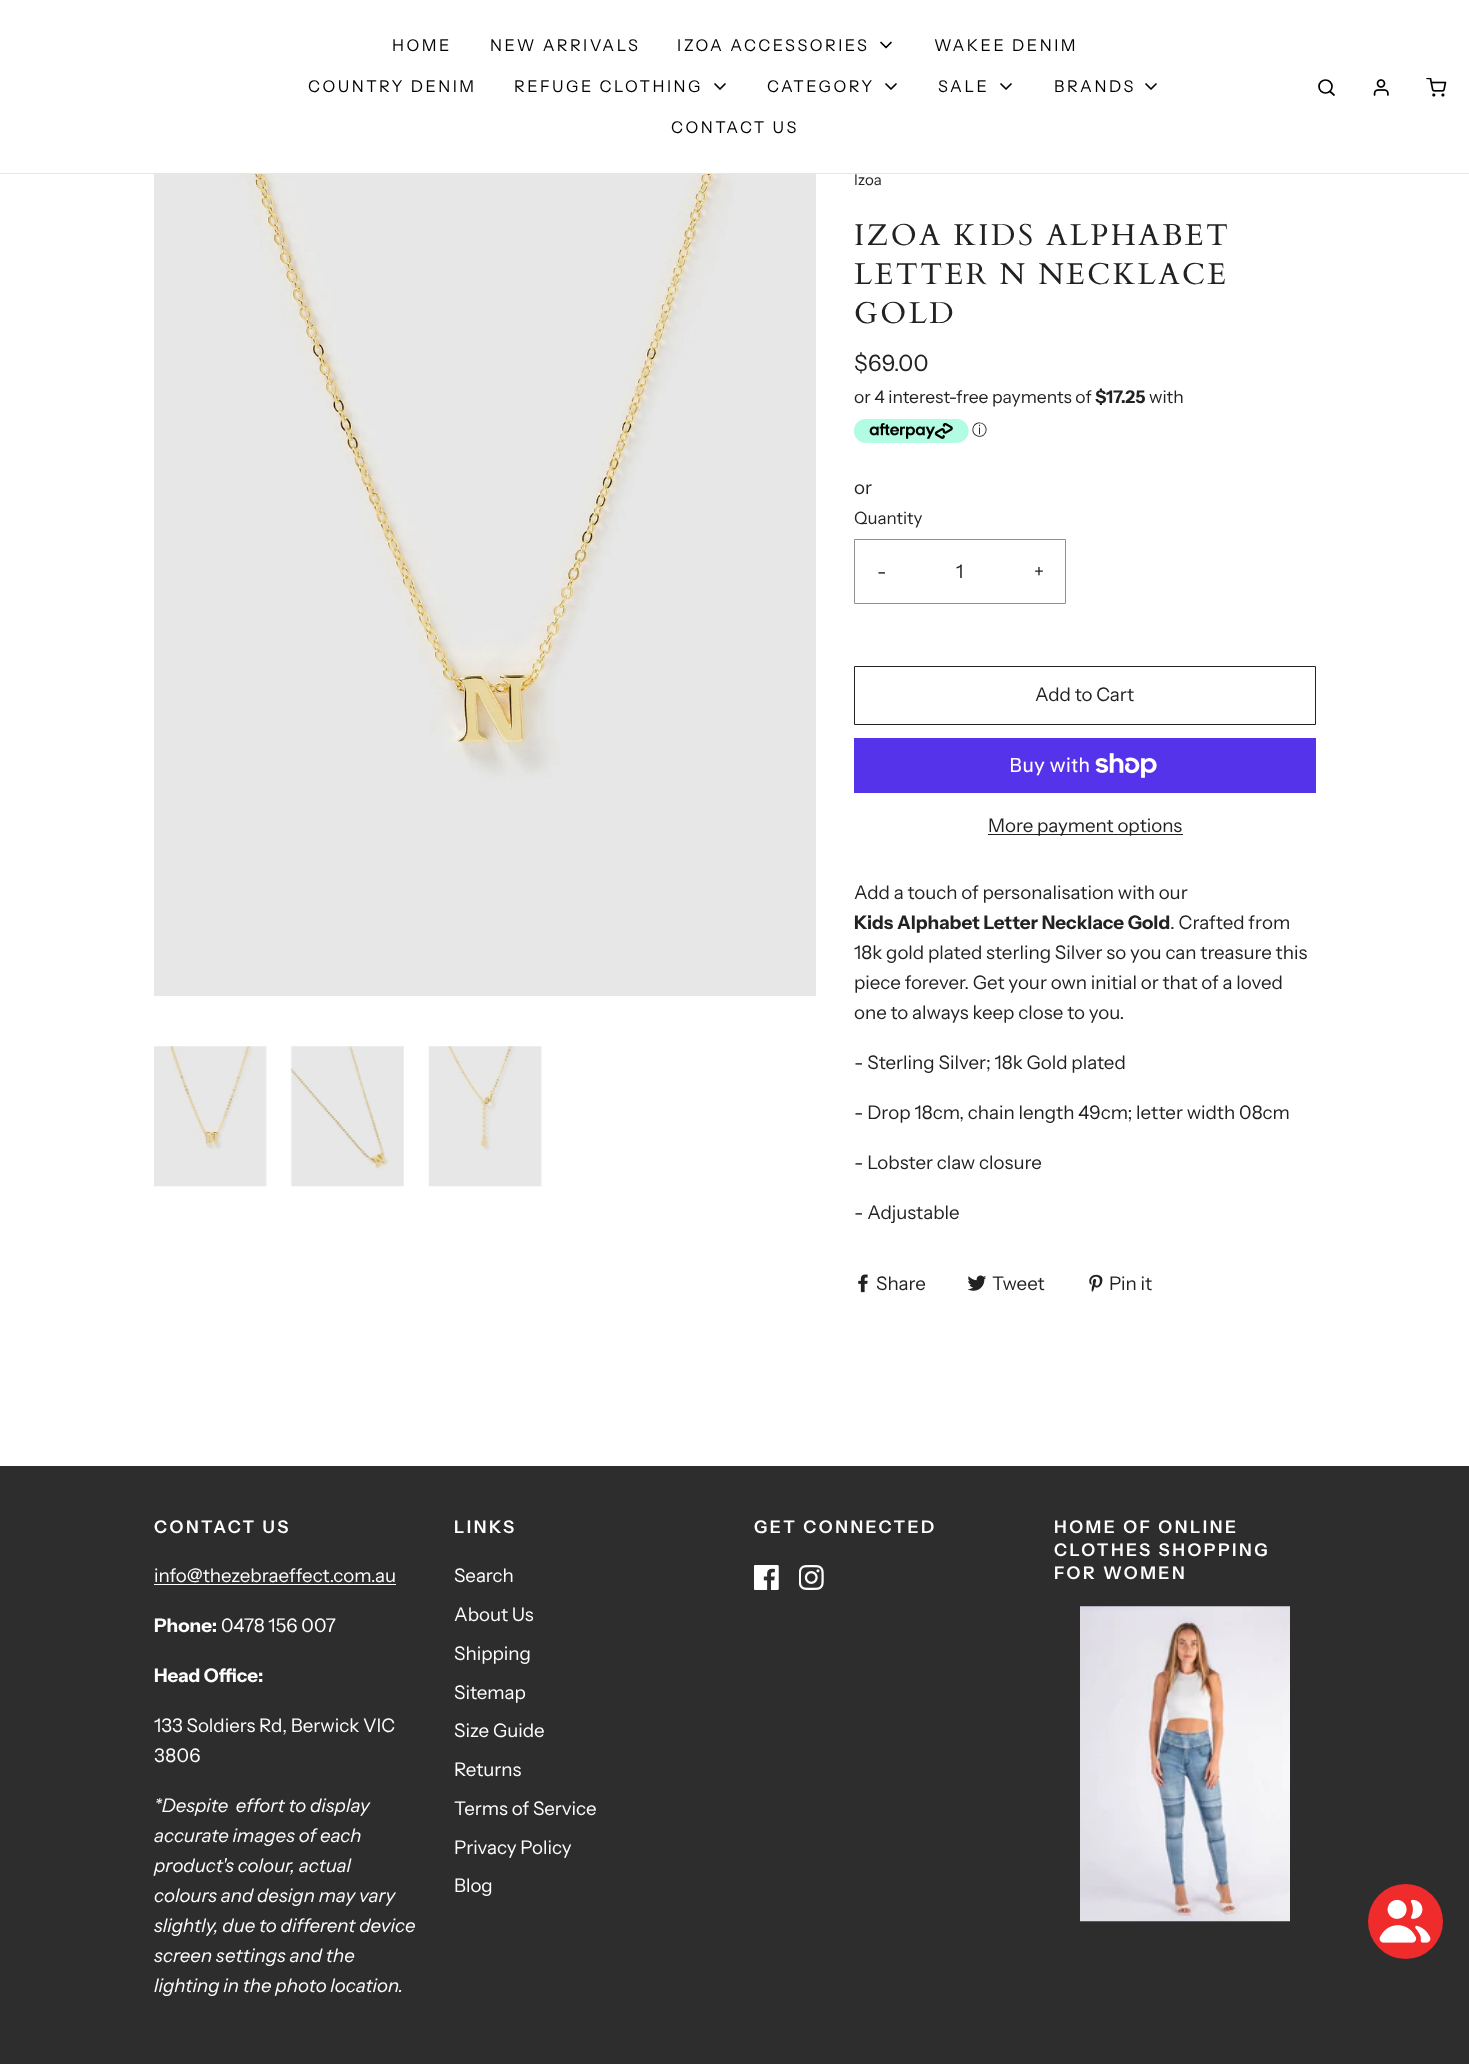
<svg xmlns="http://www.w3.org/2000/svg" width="1469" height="2064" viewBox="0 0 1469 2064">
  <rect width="100%" height="100%" fill="#fff"/>
  <path d="M0 173h1469v1H0z" fill="#e6e6e6"/>
  <path d="M881 42.5L886 47.5L891 42.5" fill="none" stroke="#000" stroke-width="1.7" stroke-linecap="round" stroke-linejoin="round"/>
  <path d="M715 84L720 89L725 84" fill="none" stroke="#000" stroke-width="1.7" stroke-linecap="round" stroke-linejoin="round"/>
  <path d="M886 84L891 89L896 84" fill="none" stroke="#000" stroke-width="1.7" stroke-linecap="round" stroke-linejoin="round"/>
  <path d="M1001 84L1006 89L1011 84" fill="none" stroke="#000" stroke-width="1.7" stroke-linecap="round" stroke-linejoin="round"/>
  <path d="M1146 84L1151 89L1156 84" fill="none" stroke="#000" stroke-width="1.7" stroke-linecap="round" stroke-linejoin="round"/>
  <circle cx="1325.5" cy="86.5" r="6.5" fill="none" stroke="#000" stroke-width="1.7"/>
  <path d="M1334 95L1330 91.5" fill="none" stroke="#000" stroke-width="1.7" stroke-linecap="round" stroke-linejoin="round"/>
  <image x="1373" y="79" width="16" height="17" href="img/1.png"/>
  <image x="1426" y="78" width="21" height="19" href="img/2.png"/>
  <image x="154" y="174" width="662" height="822" href="img/3.png"/>
  <image x="154" y="1046" width="113" height="141" href="img/4.png"/>
  <image x="290" y="1046" width="114" height="141" href="img/5.png"/>
  <image x="428" y="1046" width="114" height="141" href="img/6.png"/>
  <image x="854" y="418" width="115" height="25" href="img/7.png"/>
  <path d="M854.5 539.5h211v64H854.5z" fill="none" stroke="#919191"/>
  <path d="M854.5 666.5h461v58H854.5z" fill="none" stroke="#222"/>
  <path d="M854 738h462v55H854z" fill="#5433eb"/>
  <image x="1095" y="753" width="62" height="25" href="img/8.png"/>
  <path d="M988 834h195v1H988z" fill="#222"/>
  <image x="858" y="1274" width="10" height="19" href="img/9.png"/>
  <image x="968" y="1275" width="18" height="16" href="img/10.png"/>
  <image x="1089" y="1274" width="14" height="18" href="img/11.png"/>
  <path d="M0 1466h1469v598H0z" fill="#2d2d2d"/>
  <path d="M154 1584h242v1H154z" fill="#fff"/>
  <image x="754" y="1565" width="25" height="25" href="img/12.png"/>
  <image x="799" y="1565" width="25" height="25" href="img/13.png"/>
  <image x="1080" y="1606" width="210" height="316" href="img/14.png"/>
  <circle cx="1405.5" cy="1921.5" r="37.5" fill="#ef2b2b"/>
  <image x="1379" y="1899" width="52" height="44" href="img/15.png"/>
  <g font-family="Instrument Sans" font-size="16.25" letter-spacing="2.5" fill="#000">
    <text x="392" y="51">HOME</text>
    <text x="490" y="51">NEW ARRIVALS</text>
    <text x="677" y="51">IZOA ACCESSORIES</text>
    <text x="934" y="51">WAKEE DENIM</text>
    <text x="308" y="92">COUNTRY DENIM</text>
    <text x="514" y="92">REFUGE CLOTHING</text>
    <text x="767" y="92">CATEGORY</text>
    <text x="938" y="92">SALE</text>
    <text x="1054" y="92">BRANDS</text>
    <text x="671" y="133">CONTACT US</text>
  </g>
  <text x="854" y="185" font-family="Instrument Sans" font-size="15" fill="#222">Izoa</text>
  <g font-family="Cardo" font-size="30" letter-spacing="2.5" fill="#222">
    <text x="854" y="245">IZOA KIDS ALPHABET</text>
    <text x="854" y="284">LETTER N NECKLACE</text>
    <text x="854" y="323">GOLD</text>
  </g>
  <text x="854" y="371" font-family="Instrument Sans" font-size="22.5" fill="#222">$69.00</text>
  <text x="854" y="403" font-family="Instrument Sans" font-size="17.5" fill="#222">or 4 interest-free payments of</text>
  <text x="1095" y="403" font-family="Instrument Sans" font-size="17.5" font-weight="bold" fill="#222">$17.25</text>
  <text x="1149" y="403" font-family="Instrument Sans" font-size="17.5" fill="#222">with</text>
  <text x="972" y="435" font-family="WenQuanYi Zen Hei" font-size="15" font-weight="500" fill="#222">ⓘ</text>
  <text x="854" y="494" font-family="Instrument Sans" font-size="18.75" fill="#222">or</text>
  <text x="854" y="524" font-family="Instrument Sans" font-size="17" fill="#222">Quantity</text>
  <g font-family="Instrument Sans" font-size="18.75" fill="#222">
    <text x="877" y="578">-</text>
    <text x="956" y="578">1</text>
    <text x="1034" y="578">+</text>
    <text x="1035" y="701">Add to Cart</text>
  </g>
  <text x="1009" y="772" font-family="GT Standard" font-size="20" fill="#fff">Buy with</text>
  <g font-family="Instrument Sans" font-size="18.75" fill="#222">
    <text x="988" y="832">More payment options</text>
    <text x="854" y="899">Add a touch of personalisation with our</text>
  </g>
  <text x="854" y="929" font-family="Instrument Sans" font-size="18.75" font-weight="bold" fill="#222">Kids Alphabet Letter Necklace Gold</text>
  <g font-family="Instrument Sans" font-size="18.75" fill="#222">
    <text x="1170" y="929">. Crafted from</text>
    <text x="854" y="959">18k gold plated sterling Silver so you can treasure this</text>
    <text x="854" y="989">piece forever. Get your own initial or that of a loved</text>
    <text x="854" y="1019">one to always keep close to you.</text>
    <text x="854" y="1069">- Sterling Silver; 18k Gold plated</text>
    <text x="854" y="1119">- Drop 18cm, chain length 49cm; letter width 08cm</text>
    <text x="854" y="1169">- Lobster claw closure</text>
    <text x="854" y="1219">- Adjustable</text>
    <text x="876" y="1290">Share</text>
    <text x="992" y="1290">Tweet</text>
    <text x="1109" y="1290">Pin it</text>
  </g>
  <text x="154" y="1533" font-family="Instrument Sans" font-size="17.5" font-weight="600" letter-spacing="2.5" fill="#fff">CONTACT US</text>
  <text x="154" y="1582" font-family="Instrument Sans" font-size="18.75" fill="#fff">info@thezebraeffect.com.au</text>
  <text x="154" y="1632" font-family="Instrument Sans" font-size="18.75" font-weight="bold" fill="#fff">Phone:</text>
  <text x="221" y="1632" font-family="Instrument Sans" font-size="18.75" fill="#fff">0478 156 007</text>
  <text x="154" y="1682" font-family="Instrument Sans" font-size="18.75" font-weight="bold" fill="#fff">Head Office:</text>
  <g font-family="Instrument Sans" font-size="18.75" fill="#fff">
    <text x="154" y="1732">133 Soldiers Rd, Berwick VIC</text>
    <text x="154" y="1762">3806</text>
  </g>
  <g font-family="Instrument Sans" font-size="18.75" font-style="italic" fill="#fff">
    <text x="154" y="1812" xml:space="preserve">*Despite  effort to display</text>
    <text x="154" y="1842">accurate images of each</text>
    <text x="154" y="1872">product's colour, actual</text>
    <text x="154" y="1902">colours and design may vary</text>
    <text x="154" y="1932">slightly, due to different device</text>
    <text x="154" y="1962">screen settings and the</text>
    <text x="154" y="1992">lighting in the photo location.</text>
  </g>
  <text x="454" y="1533" font-family="Instrument Sans" font-size="17.5" font-weight="600" letter-spacing="2.5" fill="#fff">LINKS</text>
  <g font-family="Instrument Sans" font-size="18.75" fill="#fff">
    <text x="454" y="1582">Search</text>
    <text x="454" y="1621">About Us</text>
    <text x="454" y="1660">Shipping</text>
    <text x="454" y="1699">Sitemap</text>
    <text x="454" y="1737">Size Guide</text>
    <text x="454" y="1776">Returns</text>
    <text x="454" y="1815">Terms of Service</text>
    <text x="454" y="1854">Privacy Policy</text>
    <text x="454" y="1892">Blog</text>
  </g>
  <g font-family="Instrument Sans" font-size="17.5" font-weight="600" letter-spacing="2.5" fill="#fff">
    <text x="754" y="1533">GET CONNECTED</text>
    <text x="1054" y="1533">HOME OF ONLINE</text>
    <text x="1054" y="1556">CLOTHES SHOPPING</text>
    <text x="1054" y="1579">FOR WOMEN</text>
  </g>
</svg>
